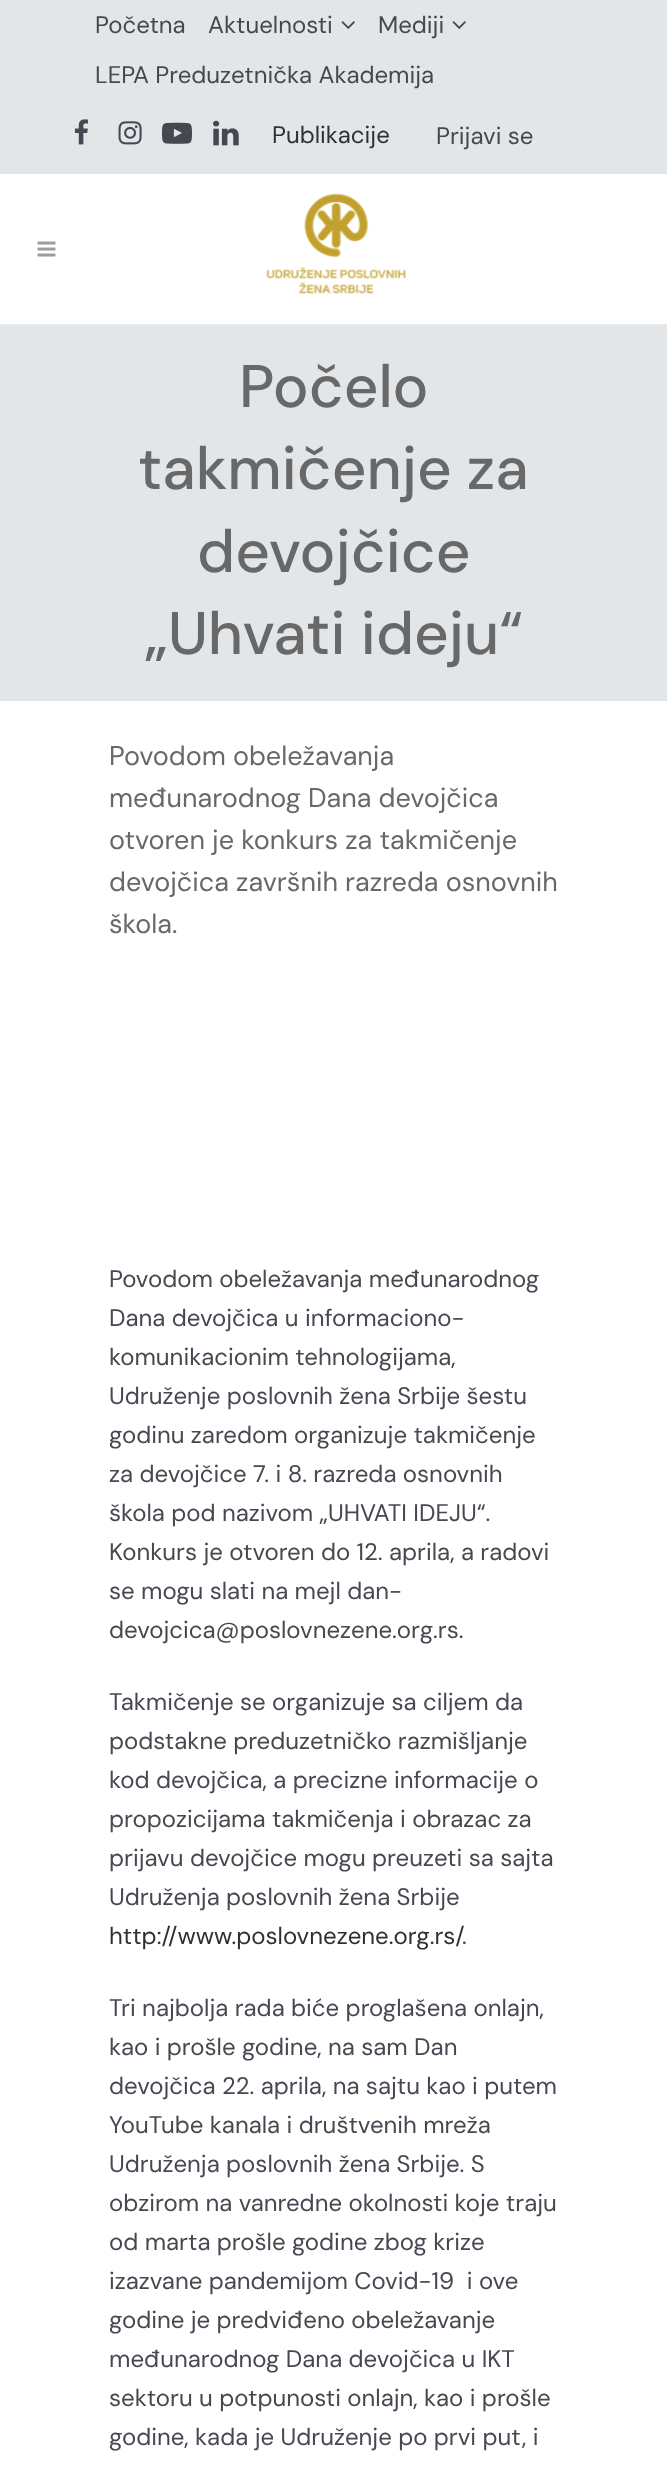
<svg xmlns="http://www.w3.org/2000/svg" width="667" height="2471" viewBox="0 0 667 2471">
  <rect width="100%" height="100%" fill="#fff"/>
  <path d="M0 0h667v174H0z" fill="#e3e6e8"/>
  <image x="341" y="21" width="14" height="8" href="img/1.png"/>
  <image x="452" y="21" width="14" height="8" href="img/1.png"/>
  <image x="74" y="119" width="14" height="26" href="img/2.png"/>
  <image x="118" y="121" width="24" height="24" href="img/3.png"/>
  <image x="162" y="122" width="30" height="22" href="img/4.png"/>
  <image x="213" y="120" width="26" height="26" href="img/5.png"/>
  <path d="M0 324h667v2H0z" fill="#eaeaea"/>
  <image x="37" y="241" width="19" height="16" href="img/6.png"/>
  <image x="266" y="193" width="140" height="101" href="img/7.png"/>
  <path d="M0 326h667v375H0z" fill="#e3e6e8"/>
  <g font-family="DM Sans" font-size="24" fill="#474751">
    <text x="95" y="33">Početna</text>
    <text x="208" y="33">Aktuelnosti</text>
    <text x="378" y="33">Mediji</text>
    <text x="95" y="83">LEPA Preduzetnička Akademija</text>
  </g>
  <text x="272" y="143" font-family="DM Sans" font-size="24" fill="#303030">Publikacije</text>
  <text x="436" y="144" font-family="DM Sans" font-size="24" fill="#474751">Prijavi se</text>
  <g font-family="DM Sans" font-size="60" font-weight="500" fill="#686869">
    <text x="239" y="407">Počelo</text>
    <text x="138" y="489">takmičenje za</text>
    <text x="197" y="572">devojčice</text>
    <text x="145" y="654">„Uhvati ideju“</text>
  </g>
  <g font-family="DM Sans" font-size="27" fill="#686869">
    <text x="109" y="765">Povodom obeležavanja</text>
    <text x="109" y="807">međunarodnog Dana devojčica</text>
    <text x="109" y="849">otvoren je konkurs za takmičenje</text>
    <text x="109" y="891">devojčica završnih razreda osnovnih</text>
    <text x="109" y="933">škola.</text>
  </g>
  <g font-family="DM Sans" font-size="24" fill="#474751">
    <text x="109" y="1287">Povodom obeležavanja međunarodnog</text>
    <text x="109" y="1326">Dana devojčica u informaciono-</text>
    <text x="109" y="1365">komunikacionim tehnologijama,</text>
    <text x="109" y="1404">Udruženje poslovnih žena Srbije šestu</text>
    <text x="109" y="1443">godinu zaredom organizuje takmičenje</text>
    <text x="109" y="1482">za devojčice 7. i 8. razreda osnovnih</text>
    <text x="109" y="1521">škola pod nazivom „UHVATI IDEJU“.</text>
    <text x="109" y="1560">Konkurs je otvoren do 12. aprila, a radovi</text>
    <text x="109" y="1599">se mogu slati na mejl dan-</text>
    <text x="109" y="1638">devojcica@poslovnezene.org.rs.</text>
    <text x="109" y="1710">Takmičenje se organizuje sa ciljem da</text>
    <text x="109" y="1749">podstakne preduzetničko razmišljanje</text>
    <text x="109" y="1788">kod devojčica, a precizne informacije o</text>
    <text x="109" y="1827">propozicijama takmičenja i obrazac za</text>
    <text x="109" y="1866">prijavu devojčice mogu preuzeti sa sajta</text>
    <text x="109" y="1905">Udruženja poslovnih žena Srbije</text>
  </g>
  <text x="109" y="1944" font-family="DM Sans" font-size="24" fill="#303030">http://www.poslovnezene.org.rs/</text>
  <g font-family="DM Sans" font-size="24" fill="#474751">
    <text x="462" y="1944">.</text>
    <text x="109" y="2016">Tri najbolja rada biće proglašena onlajn,</text>
    <text x="109" y="2055">kao i prošle godine, na sam Dan</text>
    <text x="109" y="2094">devojčica 22. aprila, na sajtu kao i putem</text>
    <text x="109" y="2133">YouTube kanala i društvenih mreža</text>
    <text x="109" y="2172">Udruženja poslovnih žena Srbije. S</text>
    <text x="109" y="2211">obzirom na vanredne okolnosti koje traju</text>
    <text x="109" y="2250">od marta prošle godine zbog krize</text>
    <text x="109" y="2289" xml:space="preserve">izazvane pandemijom Covid-19  i ove</text>
    <text x="109" y="2328">godine je predviđeno obeležavanje</text>
    <text x="109" y="2367">međunarodnog Dana devojčica u IKT</text>
    <text x="109" y="2406">sektoru u potpunosti onlajn, kao i prošle</text>
    <text x="109" y="2445">godine, kada je Udruženje po prvi put, i</text>
  </g>
</svg>
